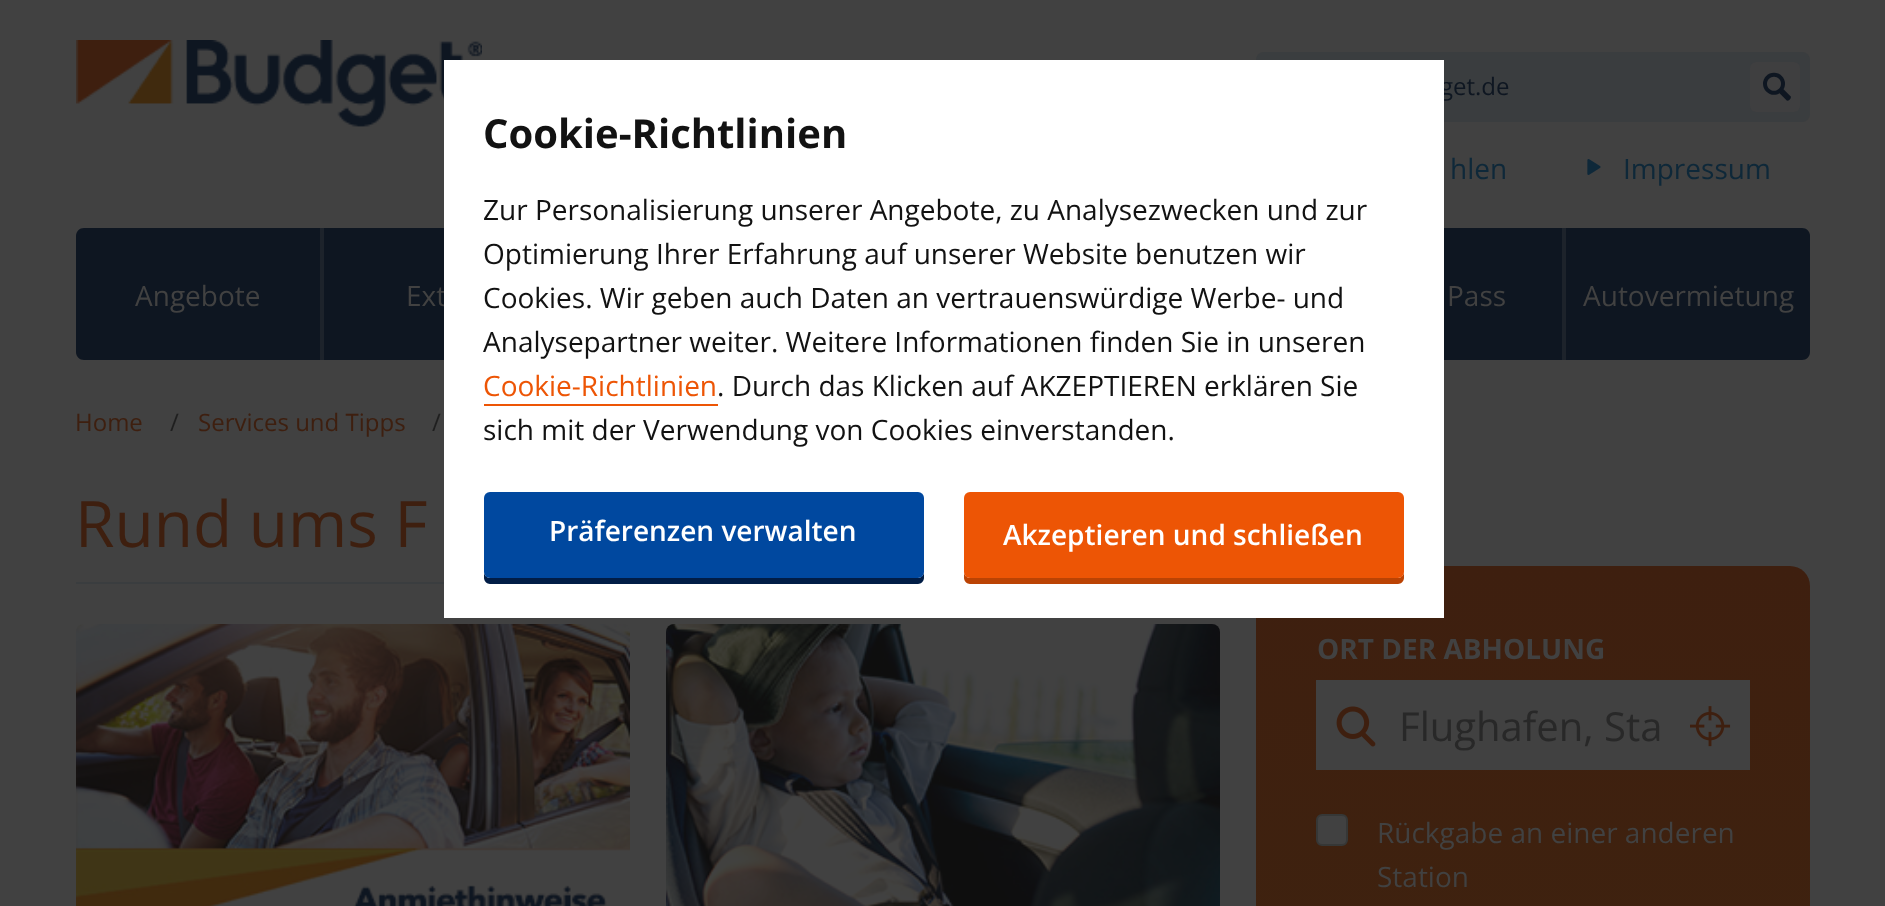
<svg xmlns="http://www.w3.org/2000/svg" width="1885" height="906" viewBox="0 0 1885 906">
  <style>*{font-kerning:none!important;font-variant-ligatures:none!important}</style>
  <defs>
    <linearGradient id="g1" gradientUnits="userSpaceOnUse" x1="1533" y1="566" x2="1533" y2="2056"><stop offset="0" stop-color="#3e1f0f"/><stop offset="1" stop-color="#402a0f"/></linearGradient>
  </defs>
  <rect width="100%" height="100%" fill="#414141"/>
  <image x="76" y="40" width="406" height="87" href="img/1.png"/>
  <rect x="1256" y="52" width="554" height="70" rx="8" fill="#3a3d3f"/>
  <rect x="1750" y="62" width="50" height="50" rx="6" fill="#3f3f40"/>
  <image x="1587" y="159" width="14" height="16" href="img/2.png"/>
  <path d="M320 228h4v132H320z" fill="#1d232b"/>
  <path d="M84 228H320V360H84C79.5 360 76 356.5 76 352V236C76 231.5 79.5 228 84 228Z" fill="#0e1621"/>
  <path d="M324 228h120v132H324z" fill="#0e1621"/>
  <path d="M1562 228h4v132H1562z" fill="#1d232b"/>
  <path d="M1444 228h118v132H1444z" fill="#0e1621"/>
  <path d="M1566 228H1802C1806.5 228 1810 231.5 1810 236V352C1810 356.5 1806.5 360 1802 360H1566Z" fill="#0e1621"/>
  <path d="M76 582h368v2H76z" fill="#3a3d3f"/>
  <image x="76" y="624" width="554" height="282" href="img/3.png"/>
  <image x="666" y="624" width="554" height="282" href="img/4.png"/>
  <rect x="1256" y="566" width="554" height="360" rx="20" fill="url(#g1)"/>
  <path d="M1316 680h434v90H1316z" fill="#414141"/>
  <image x="1336" y="706" width="40" height="41" href="img/5.png"/>
  <image x="1690" y="706" width="41" height="41" href="img/6.png"/>
  <rect x="1317" y="815" width="30" height="30" rx="5" fill="#414141" stroke="#363736" stroke-width="2"/>
  <text x="1440" y="95" font-family="Open Sans" font-size="24" fill="#0e1621">get.de</text>
  <text x="1763" y="99" font-family="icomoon" font-size="28" fill="#0e1621">🌣</text>
  <g font-family="Open Sans" font-size="28" fill="#0e2839">
    <text x="1450" y="179">hlen</text>
    <text x="1623" y="179">Impressum</text>
  </g>
  <g font-family="Open Sans" font-size="28" fill="#414141">
    <text x="135" y="306">Angebote</text>
    <text x="406" y="306">Ext</text>
    <text x="1447" y="306">Pass</text>
    <text x="1583" y="306">Autovermietung</text>
  </g>
  <text x="75" y="431" font-family="Open Sans" font-size="24" fill="#3e1f0f">Home</text>
  <text x="170" y="431" font-family="Open Sans" font-size="24" fill="#1f1f1f">/</text>
  <text x="198" y="431" font-family="Open Sans" font-size="24" fill="#3e1f0f">Services und Tipps</text>
  <text x="432" y="431" font-family="Open Sans" font-size="24" fill="#1f1f1f">/</text>
  <text x="75" y="547" font-family="Open Sans" font-size="64" fill="#3e1f0f">Rund ums F</text>
  <text x="1317" y="659" font-family="Open Sans" font-size="28" font-weight="bold" fill="#414141">ORT DER ABHOLUNG</text>
  <text x="1399" y="741" font-family="Open Sans" font-size="40" fill="#282828">Flughafen, Sta</text>
  <g font-family="Open Sans" font-size="28" fill="#414141">
    <text x="1377" y="843">Rückgabe an einer anderen</text>
    <text x="1377" y="887">Station</text>
  </g>
  <path d="M444 60h1000v558H444z" fill="#fff"/>
  <text x="483" y="148" font-family="Open Sans" font-size="40" font-weight="bold" fill="#121212">Cookie-Richtlinien</text>
  <g font-family="Open Sans" font-size="28" fill="#121212">
    <text x="483" y="220">Zur Personalisierung unserer Angebote, zu Analysezwecken und zur</text>
    <text x="483" y="264">Optimierung Ihrer Erfahrung auf unserer Website benutzen wir</text>
    <text x="483" y="308">Cookies. Wir geben auch Daten an vertrauenswürdige Werbe- und</text>
    <text x="483" y="352">Analysepartner weiter. Weitere Informationen finden Sie in unseren</text>
  </g>
  <text x="483" y="396" font-family="Open Sans" font-size="28" fill="#ed5505">Cookie-Richtlinien</text>
  <path d="M484 404h234v2H484z" fill="#ed5505"/>
  <g font-family="Open Sans" font-size="28" fill="#121212">
    <text x="717" y="396">. Durch das Klicken auf AKZEPTIEREN erklären Sie</text>
    <text x="483" y="440">sich mit der Verwendung von Cookies einverstanden.</text>
  </g>
  <path d="M484 572V578C484 581 487 584 490 584H918C921 584 924 581 924 578V572C924 575 921 578 918 578H490C487 578 484 575 484 572Z" fill="#011d46"/>
  <rect x="484" y="492" width="440" height="86" rx="6" fill="#00489f"/>
  <text x="549" y="541" font-family="Open Sans" font-size="28" font-weight="600" fill="#fff">Präferenzen verwalten</text>
  <path d="M964 572V578C964 581 967 584 970 584H1398C1401 584 1404 581 1404 578V572C1404 575 1401 578 1398 578H970C967 578 964 575 964 572Z" fill="#bb4304"/>
  <rect x="964" y="492" width="440" height="86" rx="6" fill="#ed5505"/>
  <text x="1003" y="545" font-family="Open Sans" font-size="28" font-weight="600" fill="#fff">Akzeptieren und schließen</text>
</svg>
